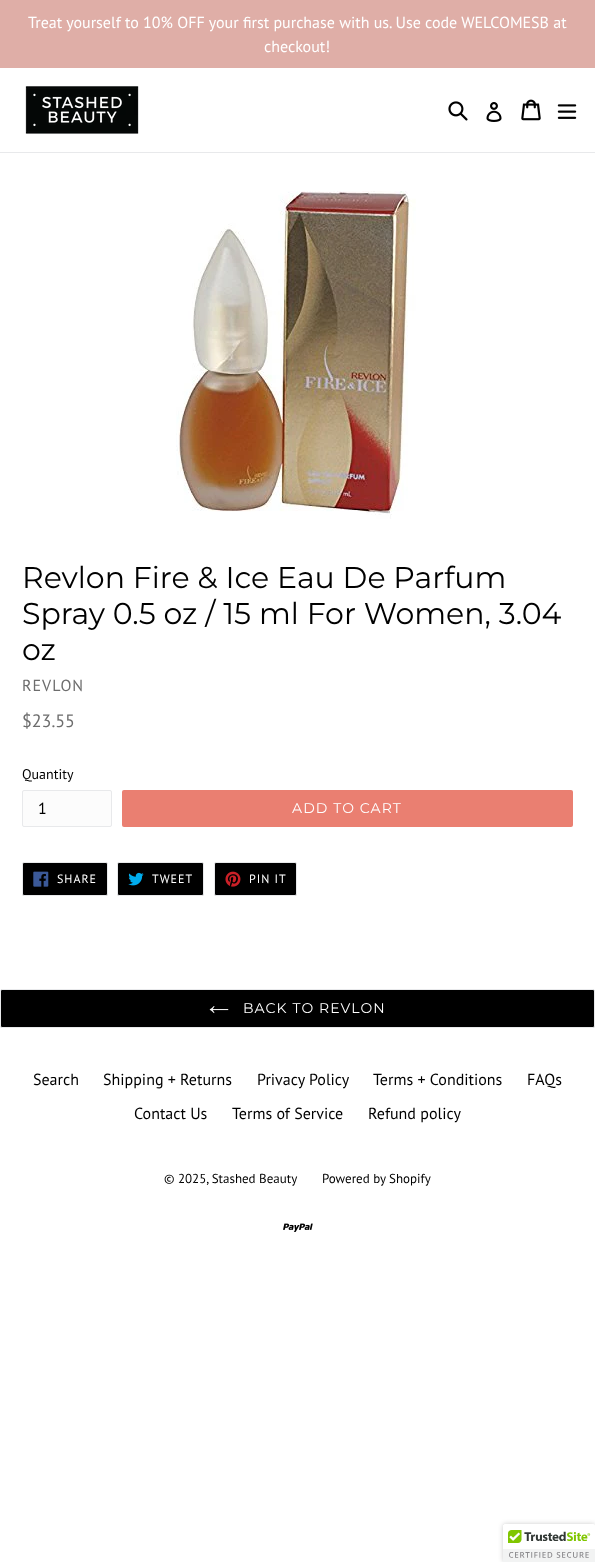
<svg xmlns="http://www.w3.org/2000/svg" width="595" height="1562" viewBox="0 0 595 1562">
  <rect width="100%" height="100%" fill="#fff"/>
  <path d="M0 0h595v68H0z" fill="#dfaea7"/>
  <path d="M0 152h595v1H0z" fill="#e8e9eb"/>
  <image x="25" y="86" width="114" height="48" href="img/1.png"/>
  <image x="448" y="101" width="20" height="20" href="img/2.png"/>
  <image x="486" y="102" width="16" height="20" href="img/3.png"/>
  <image x="521" y="99" width="20" height="22" href="img/4.png"/>
  <image x="557" y="104" width="20" height="15" href="img/5.png"/>
  <image x="176" y="191" width="240" height="328" href="img/6.png"/>
  <rect x="22.5" y="790.5" width="89" height="36" rx="1.5" fill="#fcfcfc" stroke="#e8e9eb"/>
  <rect x="122" y="790" width="451" height="37" rx="2" fill="#ea7f71"/>
  <rect x="22.5" y="862.5" width="85" height="33" rx="1.5" fill="#000" stroke="#e8e9eb"/>
  <image x="33" y="871" width="16" height="16" href="img/7.png"/>
  <rect x="117.5" y="862.5" width="86" height="33" rx="1.5" fill="#000" stroke="#e8e9eb"/>
  <image x="128" y="872" width="16" height="14" href="img/8.png"/>
  <rect x="214.5" y="862.5" width="82" height="33" rx="1.5" fill="#000" stroke="#e8e9eb"/>
  <image x="225" y="871" width="16" height="16" href="img/9.png"/>
  <rect x="0.5" y="989.5" width="594" height="38" rx="1.5" fill="#000" stroke="#e8e9eb"/>
  <image x="209" y="1006" width="20" height="8" href="img/10.png"/>
  <image x="283" y="1223" width="30" height="9" href="img/11.png"/>
  <rect x="503" y="1524" width="92" height="38" rx="2" fill="#00000033" filter="blur(2.5px)"/>
  <path d="M505 1524H595V1562H503V1526C503 1525 504 1524 505 1524Z" fill="#fff"/>
  <image x="503" y="1524" width="92" height="38" href="img/12.png"/>
  <g font-family="PT Sans" font-size="16" fill="#fff">
    <text x="28" y="28">Treat yourself to 10% OFF your first purchase with us. Use code WELCOMESB at</text>
    <text x="264" y="52">checkout!</text>
  </g>
  <g font-family="Montserrat" font-size="30" font-weight="100" fill="#000">
    <text x="22" y="588">Revlon Fire &amp; Ice Eau De Parfum</text>
    <text x="22" y="624">Spray 0.5 oz / 15 ml For Women, 3.04</text>
    <text x="22" y="660">oz</text>
  </g>
  <text x="22" y="691" font-family="PT Sans" font-size="16" letter-spacing="1" fill="#6d6d6d">REVLON</text>
  <text x="22" y="727" font-family="PT Sans" font-size="18" fill="#6d6d6d">$23.55</text>
  <text x="22" y="779" font-family="PT Sans" font-size="14" fill="#000">Quantity</text>
  <text x="38" y="814" font-family="PT Sans" font-size="16" fill="#000">1</text>
  <text x="292" y="813" font-family="Montserrat" font-size="14" font-weight="100" letter-spacing="1.1" fill="#fff">ADD TO CART</text>
  <g font-family="PT Sans" font-size="12" letter-spacing="1" fill="#fff">
    <text x="57" y="883">SHARE</text>
    <text x="152" y="883">TWEET</text>
    <text x="249" y="883">PIN IT</text>
  </g>
  <text x="243" y="1013" font-family="Montserrat" font-size="14" font-weight="100" letter-spacing="1.1" fill="#fff">BACK TO REVLON</text>
  <g font-family="PT Sans" font-size="16" fill="#000">
    <text x="33" y="1085">Search</text>
    <text x="103" y="1085">Shipping + Returns</text>
    <text x="257" y="1085">Privacy Policy</text>
    <text x="373" y="1085">Terms + Conditions</text>
    <text x="527" y="1085">FAQs</text>
    <text x="134" y="1119">Contact Us</text>
    <text x="232" y="1119">Terms of Service</text>
    <text x="368" y="1119">Refund policy</text>
  </g>
  <g font-family="PT Sans" font-size="13" fill="#000">
    <text x="164" y="1183">© 2025, Stashed Beauty</text>
    <text x="322" y="1183">Powered by Shopify</text>
  </g>
</svg>
